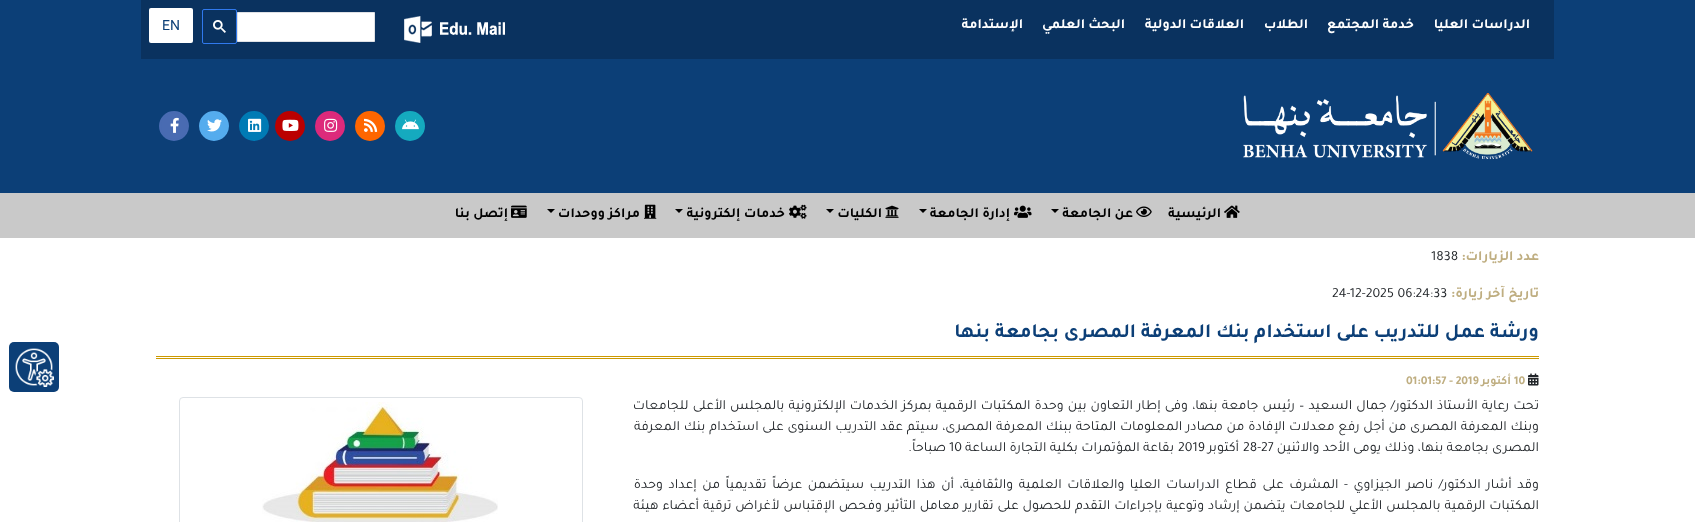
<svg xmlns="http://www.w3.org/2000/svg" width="1695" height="522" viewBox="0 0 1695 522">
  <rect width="100%" height="100%" fill="#fff"/>
  <path d="M0 0h1695v193H0z" fill="#0c3f77"/>
  <path d="M141 0h1413v59H141z" fill="#0a325f"/>
  <image x="404" y="16" width="101" height="27" href="img/1.png"/>
  <path d="M237.5 12.5h137v29H237.5z" fill="#fff" stroke="#dfe1e5"/>
  <rect x="202.5" y="9.5" width="34" height="34" rx="1.5" fill="none" stroke="#3079ed"/>
  <image x="213" y="20" width="13" height="13" href="img/2.png"/>
  <rect x="149" y="8" width="44" height="35" rx="2" fill="#fff"/>
  <image x="1243" y="93" width="290" height="67" href="img/3.png"/>
  <circle cx="410" cy="126" r="14" fill="#15aabf" stroke="#15aabf" stroke-width="2"/>
  <image x="402" y="119" width="17" height="11" href="img/4.png"/>
  <circle cx="370" cy="126" r="14" fill="#f60" stroke="#f60" stroke-width="2"/>
  <image x="364" y="118" width="14" height="14" href="img/5.png"/>
  <circle cx="330" cy="126" r="14" fill="#dd2a7b" stroke="#dd2a7b" stroke-width="2"/>
  <image x="324" y="118" width="14" height="14" href="img/6.png"/>
  <circle cx="290" cy="126" r="14" fill="#b00" stroke="#b00" stroke-width="2"/>
  <image x="282" y="119" width="17" height="12" href="img/7.png"/>
  <circle cx="254" cy="126" r="14" fill="#007bb5" stroke="#007bb5" stroke-width="2"/>
  <image x="248" y="118" width="14" height="14" href="img/8.png"/>
  <circle cx="214" cy="126" r="14" fill="#55acee" stroke="#55acee" stroke-width="2"/>
  <image x="207" y="119" width="15" height="13" href="img/9.png"/>
  <circle cx="174" cy="126" r="14" fill="#496bb2" stroke="#496bb2" stroke-width="2"/>
  <image x="170" y="117" width="9" height="16" href="img/10.png"/>
  <path d="M0 193h1695v45H0z" fill="#c9c9c9"/>
  <image x="1224" y="205" width="16" height="13" href="img/11.png"/>
  <image x="1136" y="206" width="16" height="11" href="img/12.png"/>
  <path d="M1051 209H1059L1055 213Z" fill="#000"/>
  <image x="1014" y="205" width="18" height="13" href="img/13.png"/>
  <path d="M919 209H927L923 213Z" fill="#000"/>
  <image x="885" y="205" width="14" height="13" href="img/14.png"/>
  <path d="M826 209H834L830 213Z" fill="#000"/>
  <image x="789" y="204" width="18" height="15" href="img/15.png"/>
  <path d="M675 209H683L679 213Z" fill="#000"/>
  <image x="644" y="204" width="13" height="15" href="img/16.png"/>
  <path d="M547 209H555L551 213Z" fill="#000"/>
  <image x="511" y="205" width="16" height="13" href="img/17.png"/>
  <path d="M156 356h1383v1H156z" fill="#c90"/>
  <path d="M156 358h1383v1H156z" fill="#c90"/>
  <image x="1528" y="373" width="11" height="13" href="img/18.png"/>
  <rect x="179.5" y="397.5" width="403" height="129" rx="3.5" fill="none" stroke="#dee2e6"/>
  <image x="262" y="402" width="236" height="120" href="img/19.png"/>
  <rect x="9" y="342" width="50" height="50" rx="5" fill="#0c3f77"/>
  <image x="15" y="348" width="39" height="39" href="img/20.png"/>
  <g font-family="Tajawal" font-size="14" font-weight="bold" direction="rtl" fill="#fff">
    <text x="1530" y="28">الدراسات العليا</text>
    <text x="1414" y="28">خدمة المجتمع</text>
    <text x="1308" y="28">الطلاب</text>
    <text x="1244" y="28">العلاقات الدولية</text>
    <text x="1125" y="28">البحث العلمي</text>
    <text x="1023" y="28">الإستدامة</text>
  </g>
  <text x="162" y="30" font-family="Roboto" font-size="14" fill="#0c3f77">EN</text>
  <g font-family="Tajawal" font-size="14" font-weight="bold" direction="rtl" fill="#000">
    <text x="1221" y="217">الرئيسية</text>
    <text x="1133" y="217">عن الجامعة</text>
    <text x="1010" y="217">إدارة الجامعة</text>
    <text x="882" y="217">الكليات</text>
    <text x="785" y="217">خدمات إلكترونية</text>
    <text x="640" y="217">مراكز ووحدات</text>
    <text x="508" y="217">إتصل بنا</text>
  </g>
  <text x="1539" y="260" font-family="Tajawal" font-size="14" font-weight="bold" direction="rtl" fill="#bfae81">عدد الزيارات:</text>
  <text x="1431" y="260" font-family="Tajawal" font-size="14" fill="#212529">1838</text>
  <text x="1539" y="297" font-family="Tajawal" font-size="14" font-weight="bold" direction="rtl" fill="#bfae81">تاريخ آخر زيارة:</text>
  <text x="1332" y="297" font-family="Tajawal" font-size="14" fill="#212529">24-12-2025 06:24:33</text>
  <text x="1539" y="337" font-family="Tajawal" font-size="20" font-weight="bold" direction="rtl" fill="#0c3f77">ورشة عمل للتدريب على استخدام بنك المعرفة المصرى بجامعة بنها</text>
  <text x="1514" y="384" font-family="Tajawal" font-size="12" font-weight="bold" fill="#bfae81">10</text>
  <text x="1511" y="384" font-family="Tajawal" font-size="12" font-weight="bold" direction="rtl" fill="#bfae81">أكتوبر</text>
  <text x="1406" y="384" font-family="Tajawal" font-size="12" font-weight="bold" fill="#bfae81">01:01:57 - 2019</text>
  <g font-family="Tajawal" font-size="14" direction="rtl" fill="#212529">
    <text x="1539" y="409" word-spacing="0.75">تحت رعاية الأستاذ الدكتور/ جمال السعيد – رئيس جامعة بنها، وفى إطار التعاون بين وحدة المكتبات الرقمية بمركز الخدمات الإلكترونية بالمجلس الأعلى للجامعات</text>
    <text x="1539" y="430" word-spacing="0.4">وبنك المعرفة المصرى من أجل رفع معدلات الإفادة من مصادر المعلومات المتاحة ببنك المعرفة المصرى، سيتم عقد التدريب السنوى على استخدام بنك المعرفة</text>
    <text x="1539" y="451">المصرى بجامعة بنها، وذلك يومى الأحد والاثنين</text>
  </g>
  <text x="1243" y="451" font-family="Tajawal" font-size="14" fill="#212529">28-27</text>
  <text x="1239" y="451" font-family="Tajawal" font-size="14" direction="rtl" fill="#212529">أكتوبر</text>
  <text x="1178" y="451" font-family="Tajawal" font-size="14" fill="#212529">2019</text>
  <text x="1174" y="451" font-family="Tajawal" font-size="14" direction="rtl" fill="#212529">بقاعة المؤتمرات بكلية التجارة الساعة</text>
  <text x="949" y="451" font-family="Tajawal" font-size="14" fill="#212529">10</text>
  <g font-family="Tajawal" font-size="14" direction="rtl" fill="#212529">
    <text x="946" y="451">صباحاً.</text>
    <text x="1539" y="488" word-spacing="2.2">وقد أشار الدكتور/ ناصر الجيزاوي - المشرف على قطاع الدراسات العليا والعلاقات العلمية والثقافية، أن هذا التدريب سيتضمن عرضاً تقديمياً من إعداد وحدة</text>
    <text x="1539" y="509" word-spacing="0.5">المكتبات الرقمية بالمجلس الأعلي للجامعات يتضمن إرشاد وتوعية بإجراءات التقدم للحصول على تقارير معامل التأثير وفحص الإقتباس لأغراض ترقية أعضاء هيئة</text>
  </g>
</svg>
